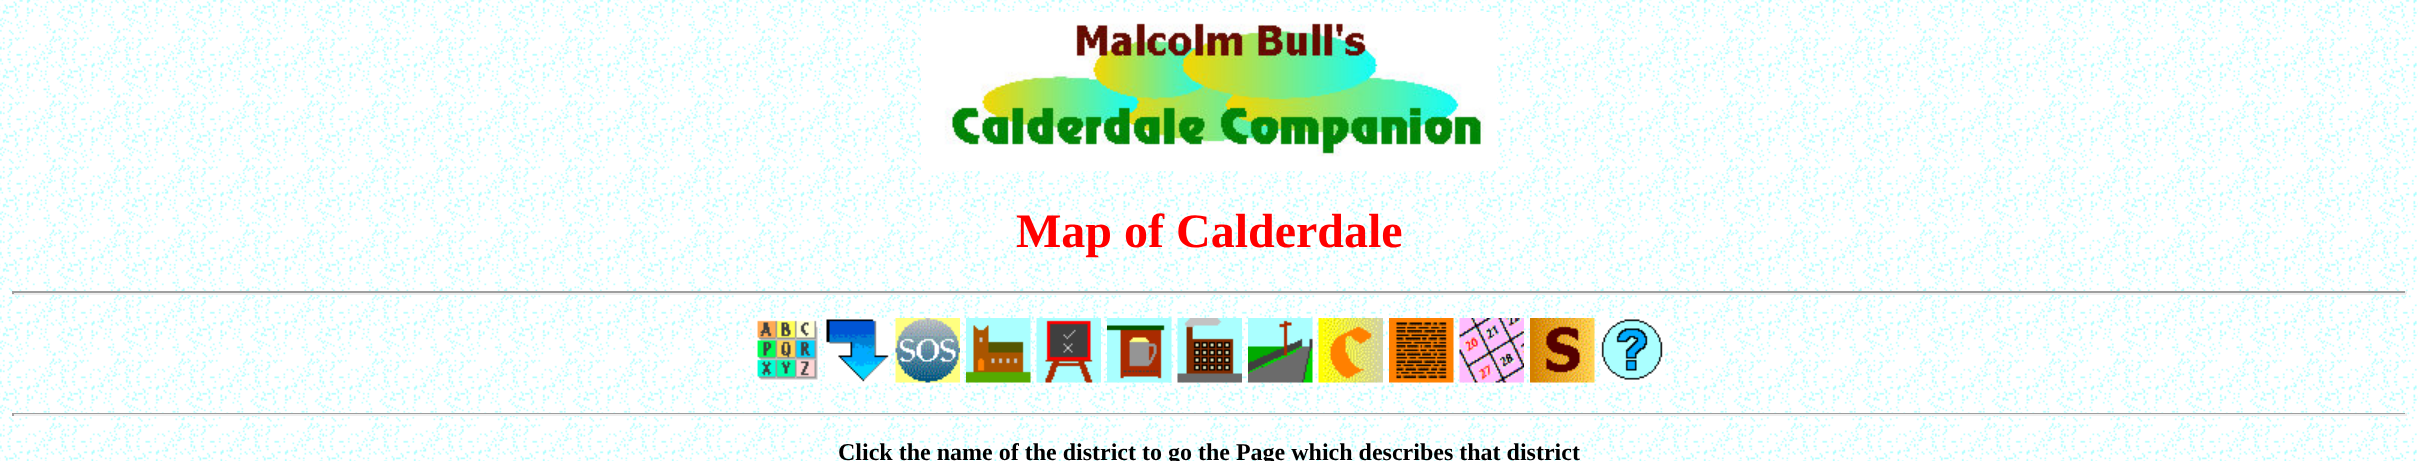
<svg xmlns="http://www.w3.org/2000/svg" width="2418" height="461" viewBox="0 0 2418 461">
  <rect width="100%" height="100%" fill="#fff"/>
  <image x="0" y="0" width="2418" height="461" href="img/1.png"/>
  <image x="921" y="12" width="576" height="159" href="img/2.png"/>
  <path d="M12 291h2394v2H12z" fill="#9f9f9f"/>
  <path d="M2405 291h2v3H2405z" fill="#eee"/>
  <path d="M12 293h2394v2H12z" fill="#eee"/>
  <path d="M12 291h2v3H12z" fill="#9f9f9f"/>
  <image x="754" y="318" width="65" height="65" href="img/3.png"/>
  <image x="825" y="318" width="65" height="65" href="img/4.png"/>
  <image x="895" y="318" width="65" height="65" href="img/5.png"/>
  <image x="966" y="318" width="65" height="65" href="img/6.png"/>
  <image x="1036" y="318" width="65" height="65" href="img/7.png"/>
  <image x="1107" y="318" width="65" height="65" href="img/8.png"/>
  <image x="1177" y="318" width="65" height="65" href="img/9.png"/>
  <image x="1248" y="318" width="65" height="65" href="img/10.png"/>
  <image x="1318" y="318" width="65" height="65" href="img/11.png"/>
  <image x="1389" y="318" width="65" height="65" href="img/12.png"/>
  <image x="1459" y="318" width="65" height="65" href="img/13.png"/>
  <image x="1530" y="318" width="65" height="65" href="img/14.png"/>
  <image x="1600" y="318" width="65" height="65" href="img/15.png"/>
  <path d="M12 413h2394v1H12z" fill="#9f9f9f"/>
  <path d="M2405 413h2v3H2405z" fill="#eee"/>
  <path d="M12 414h2394v2H12z" fill="#eee"/>
  <path d="M12 413h2v3H12z" fill="#9f9f9f"/>
  <text x="1016" y="247" font-family="Liberation Serif" font-size="48" font-weight="bold" fill="#f00">Map of Calderdale</text>
  <text x="838" y="460" font-family="Liberation Serif" font-size="24" font-weight="bold" fill="#000">Click the name of the district to go the Page which describes that district</text>
</svg>
